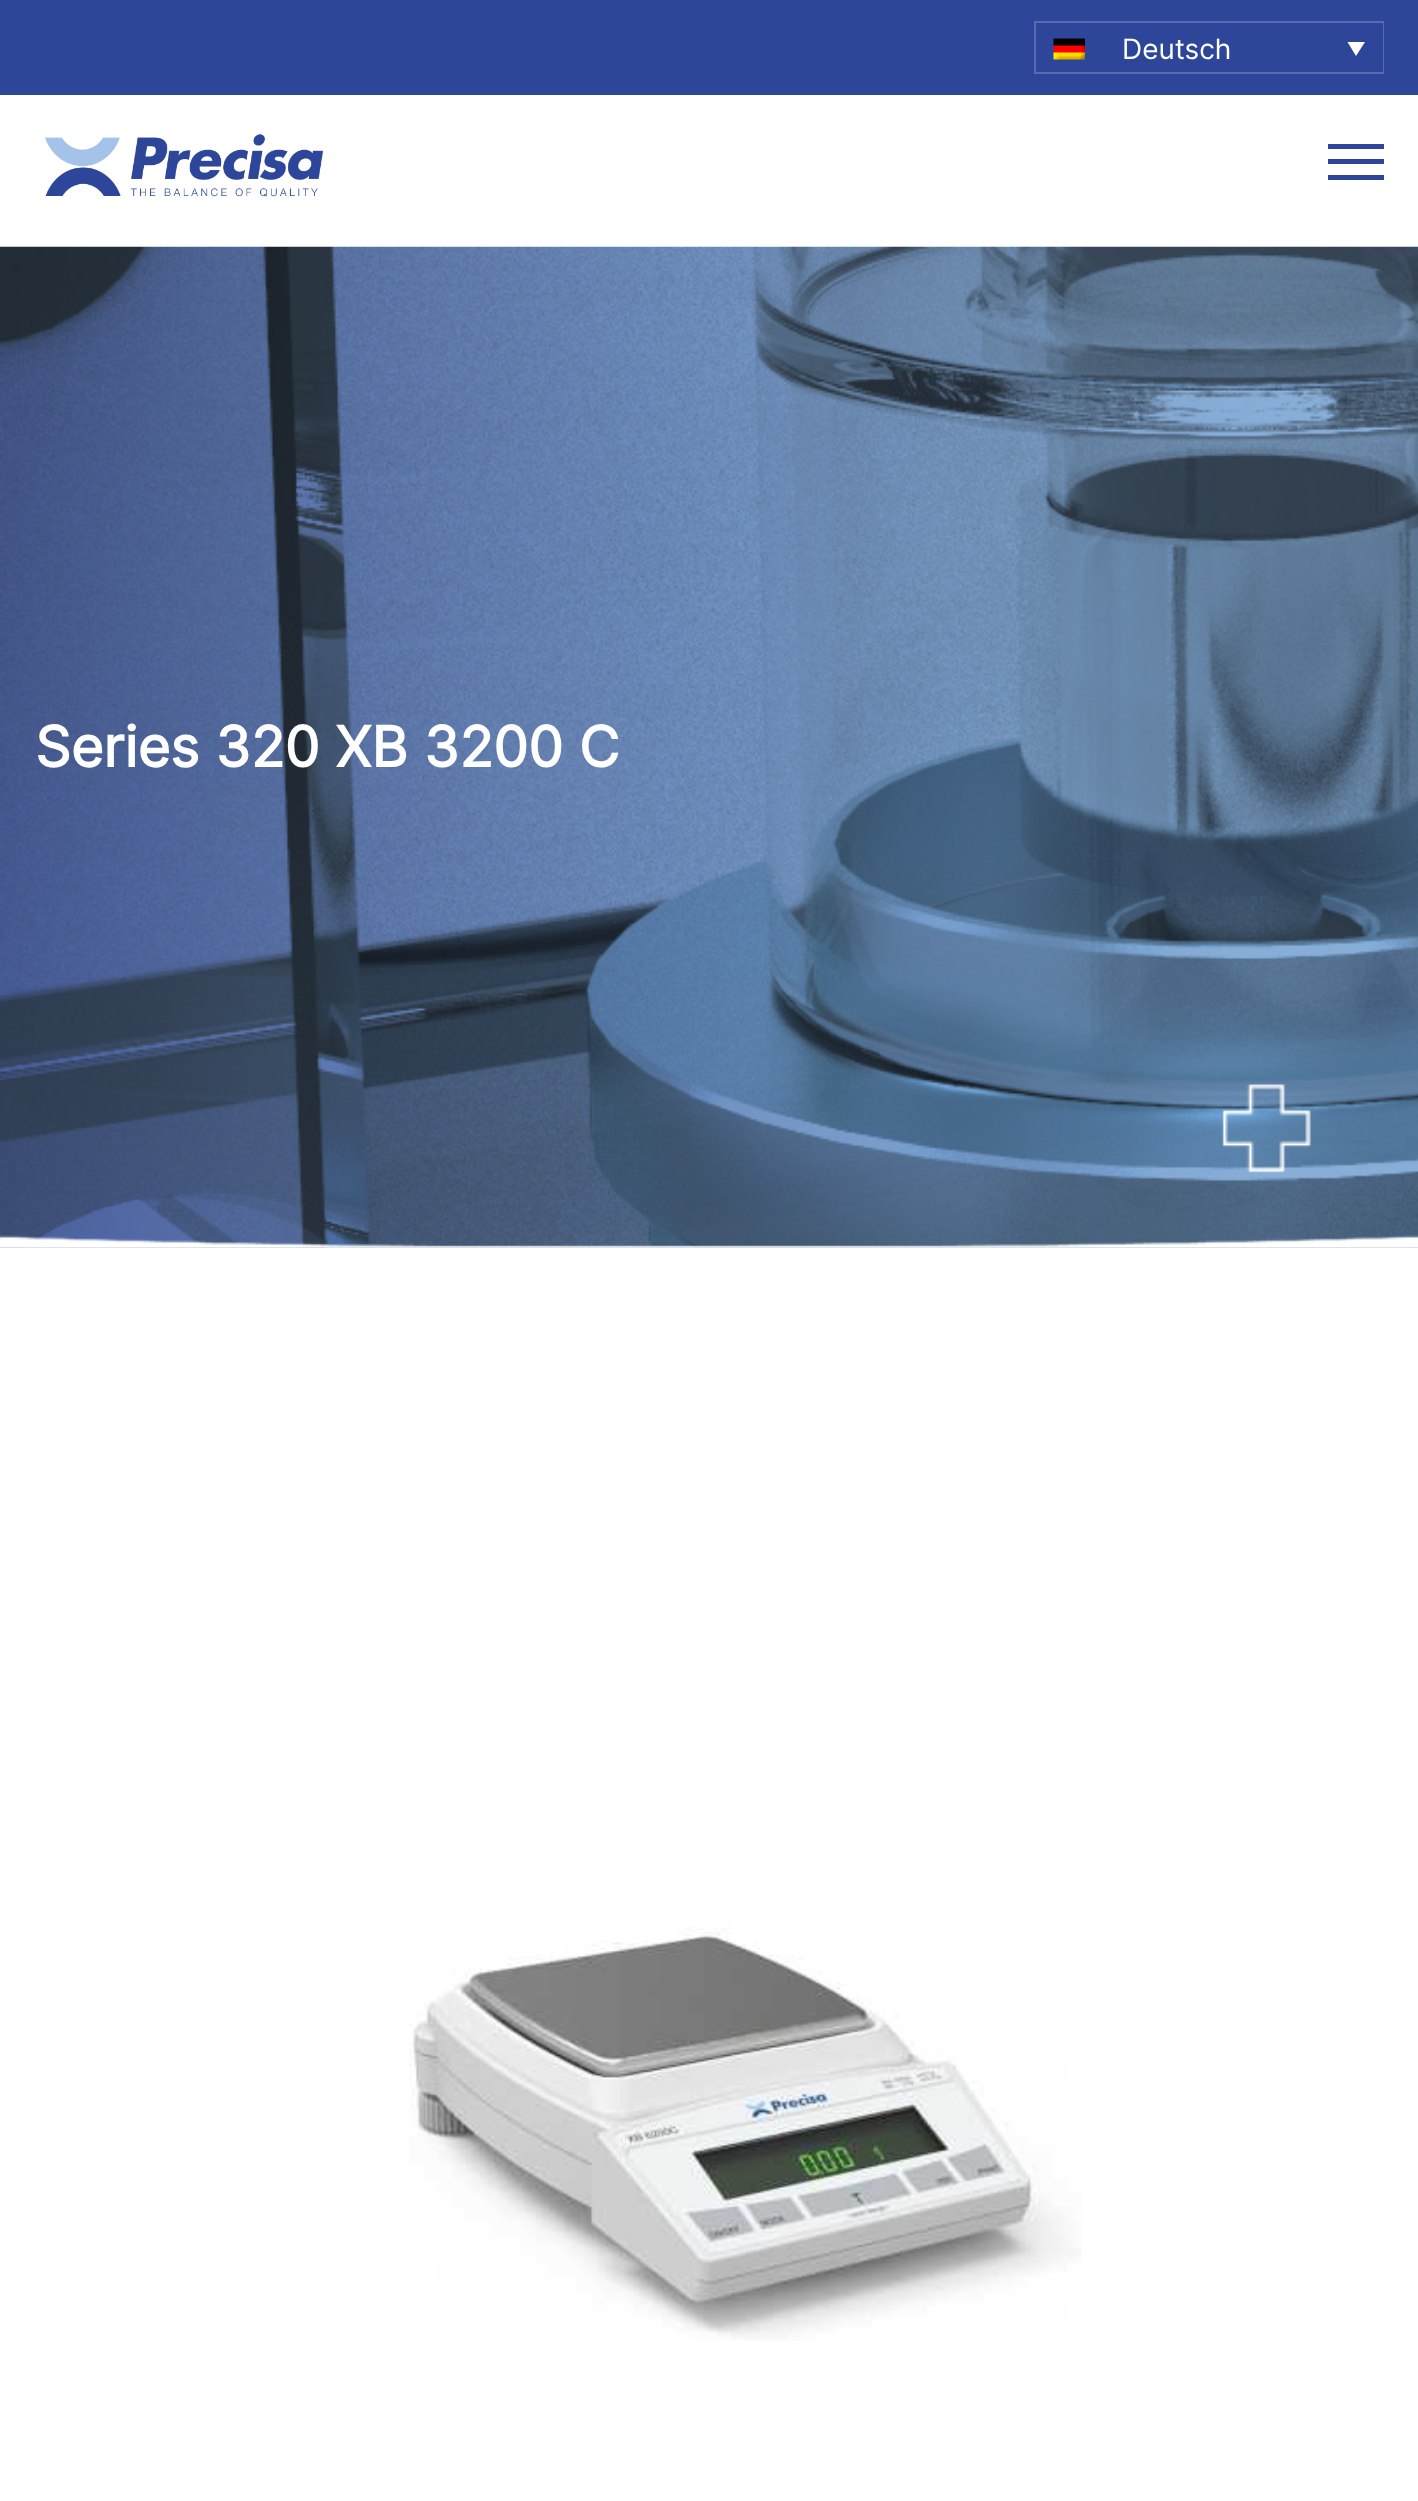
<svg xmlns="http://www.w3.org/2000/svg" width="1418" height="2501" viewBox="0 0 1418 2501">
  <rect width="100%" height="100%" fill="#fff"/>
  <path d="M0 0h1418v95H0z" fill="#2d469a"/>
  <path d="M1035 22h348v51H1035z" fill="none" stroke="#576bae" stroke-width="2"/>
  <path d="M1382 23h1v49H1382z" fill="#2d469a"/>
  <image x="1053" y="38" width="32" height="22" href="img/1.png"/>
  <path d="M1347.5 42H1365L1356 56Z" fill="#fff"/>
  <image x="45" y="134" width="278" height="63" href="img/2.png"/>
  <path d="M1328 144H1384V149H1328ZM1328 159H1384V164H1328V158ZM1328 175H1384V180H1328Z" fill="#2d469a"/>
  <image x="0" y="246" width="1418" height="1002" href="img/3.png"/>
  <image x="0" y="1235" width="1418" height="13" href="img/4.png"/>
  <image x="409" y="1927" width="673" height="414" href="img/5.png"/>
  <text x="1122" y="59" font-family="Inter" font-size="28" fill="#fff">Deutsch</text>
  <text x="35" y="767" font-family="Inter" font-size="56" font-weight="bold" fill="#fff">Series 320 XB 3200 C</text>
</svg>
